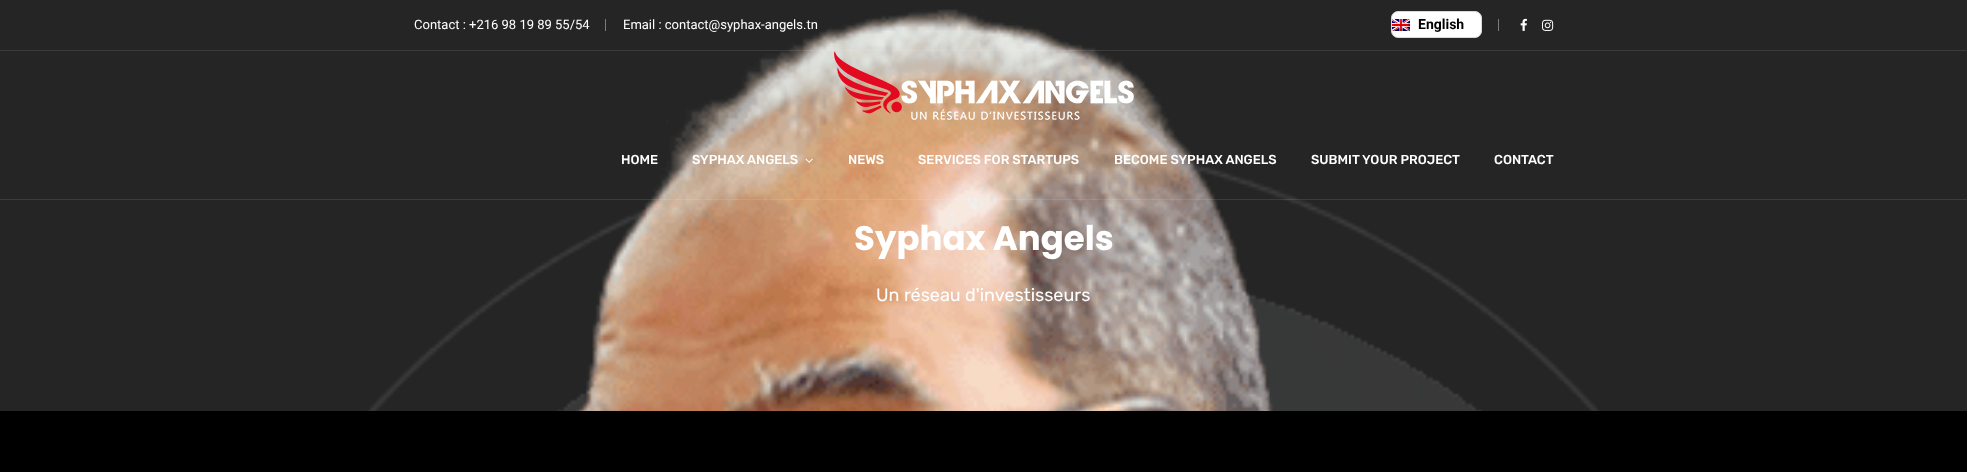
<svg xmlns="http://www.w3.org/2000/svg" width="1967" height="472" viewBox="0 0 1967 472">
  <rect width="100%" height="100%" fill="#252525"/>
  <image x="367" y="9" width="1233" height="402" href="img/6.png"/>
  <path d="M0 50h1967v1H0z" fill="#ffffff1a"/>
  <path d="M605 19h1v12H605z" fill="#7c7c7c"/>
  <rect x="1391.5" y="11.5" width="90" height="26" rx="6.5" fill="#fff" stroke="#d9d9d9"/>
  <image x="1392" y="19" width="18" height="12" href="img/1.png"/>
  <path d="M1498 19h1v12H1498z" fill="#7c7c7c"/>
  <image x="1520" y="18" width="7" height="13" href="img/2.png"/>
  <image x="1542" y="19" width="12" height="12" href="img/3.png"/>
  <path d="M0 199h1967v1H0z" fill="#ffffff1a"/>
  <image x="834" y="51" width="300" height="69" href="img/4.png"/>
  <image x="805" y="158" width="8" height="5" href="img/5.png"/>
  <path d="M0 411h1967v61H0z" fill="#000"/>
  <g font-family="Roboto" font-size="13" fill="#fff">
    <text x="414" y="29">Contact : +216 98 19 89 55/54</text>
    <text x="623" y="29">Email : contact@syphax-angels.tn</text>
  </g>
  <text x="1418" y="29" font-family="Roboto" font-size="14" font-weight="bold" fill="#000">English</text>
  <g font-family="Rubik" font-size="13" font-weight="500" fill="#fff">
    <text x="621" y="164">HOME</text>
    <text x="692" y="164">SYPHAX ANGELS</text>
    <text x="848" y="164">NEWS</text>
    <text x="918" y="164">SERVICES FOR STARTUPS</text>
    <text x="1114" y="164">BECOME SYPHAX ANGELS</text>
    <text x="1311" y="164">SUBMIT YOUR PROJECT</text>
    <text x="1494" y="164">CONTACT</text>
  </g>
  <text x="854" y="250" font-family="Poppins" font-size="34" font-weight="bold" fill="#fff">Syphax Angels</text>
  <text x="876" y="301" font-family="Rubik" font-size="18" fill="#fff">Un réseau d'investisseurs</text>
</svg>
